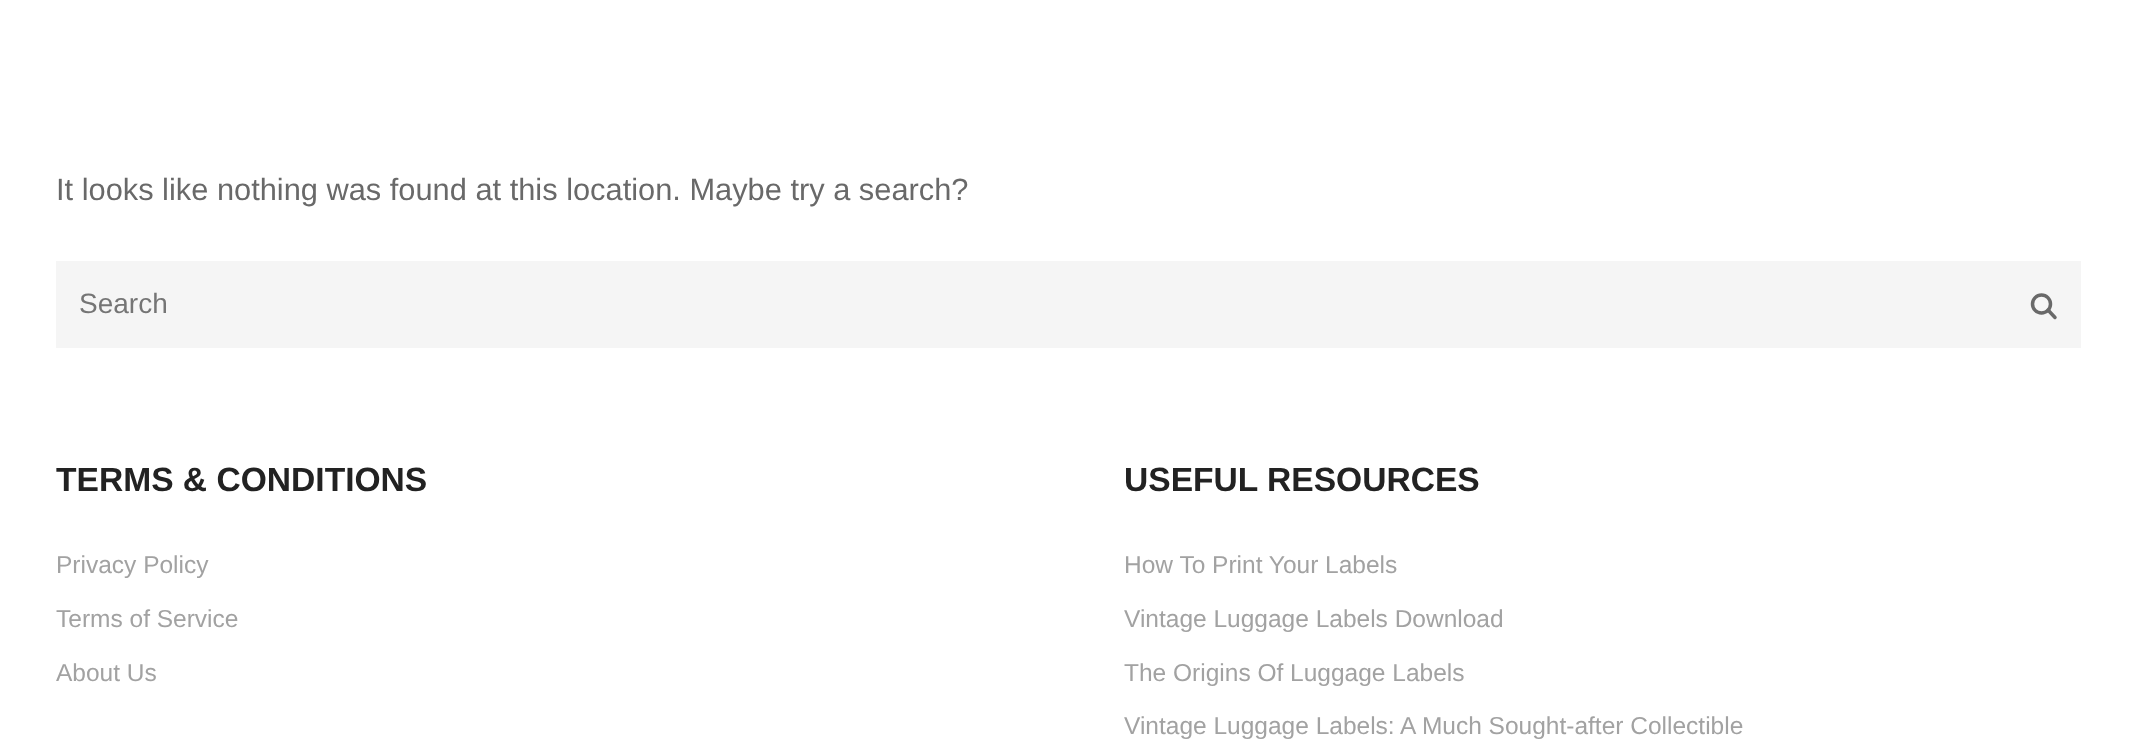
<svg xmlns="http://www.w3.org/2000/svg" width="2136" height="756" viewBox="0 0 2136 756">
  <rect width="100%" height="100%" fill="#fff"/>
  <path d="M56 261h2025v87H56z" fill="#f5f5f5"/>
  <circle cx="2041.5" cy="304" r="9" fill="none" stroke="#696969" stroke-width="3.5"/>
  <path d="M2048 310L2055 317.5" fill="none" stroke="#696969" stroke-width="3.5" stroke-linecap="round" stroke-linejoin="round"/>
  <text x="56" y="200" font-family="Liberation Sans" font-size="30.8" fill="#696969">It looks like nothing was found at this location. Maybe try a search?</text>
  <text x="79" y="313" font-family="Liberation Sans" font-size="28" fill="#757575">Search</text>
  <text x="56" y="491" font-family="Liberation Sans" font-size="33.6" font-weight="bold" fill="#222">TERMS &amp; CONDITIONS</text>
  <g font-family="Liberation Sans" font-size="24.5" fill="#a2a2a2">
    <text x="56" y="573">Privacy Policy</text>
    <text x="56" y="627">Terms of Service</text>
    <text x="56" y="681">About Us</text>
  </g>
  <text x="1124" y="491" font-family="Liberation Sans" font-size="33.6" font-weight="bold" fill="#222">USEFUL RESOURCES</text>
  <g font-family="Liberation Sans" font-size="24.5" fill="#a2a2a2">
    <text x="1124" y="573">How To Print Your Labels</text>
    <text x="1124" y="627">Vintage Luggage Labels Download</text>
    <text x="1124" y="681">The Origins Of Luggage Labels</text>
    <text x="1124" y="734">Vintage Luggage Labels: A Much Sought-after Collectible</text>
  </g>
</svg>
